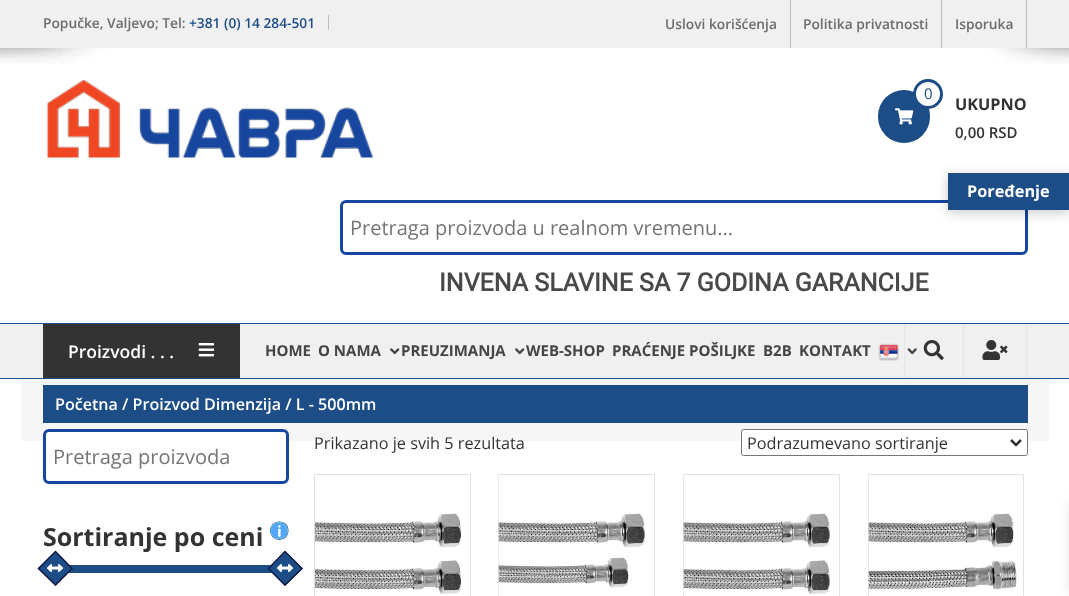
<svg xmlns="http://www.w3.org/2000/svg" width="1069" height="596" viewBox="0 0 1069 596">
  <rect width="100%" height="100%" fill="#fff"/>
  <image x="0" y="48" width="1069" height="16" href="img/1.png"/>
  <path d="M0 0h1069v48H0z" fill="#f0f0f0"/>
  <path d="M328 15h1v15H328z" fill="#c0bfbf"/>
  <path d="M790 0h1v48H790z" fill="#c0bfbf"/>
  <path d="M941 0h1v48H941z" fill="#c0bfbf"/>
  <path d="M1026 0h1v48H1026z" fill="#c0bfbf"/>
  <image x="47" y="79" width="326" height="79" href="img/2.png"/>
  <rect x="878" y="90" width="52" height="53" rx="26" fill="#1c4d87"/>
  <image x="895" y="108" width="19" height="17" href="img/3.png"/>
  <circle cx="928" cy="94" r="13.5" fill="#fff" stroke="#1c4d87" stroke-width="3"/>
  <rect x="341.5" y="201.5" width="685" height="52" rx="4.5" fill="none" stroke="#17469e" stroke-width="3"/>
  <path d="M0 324h1069v54H0z" fill="#f0f0f0"/>
  <path d="M0 323h1069v1H0z" fill="#16559c"/>
  <path d="M0 378h1069v1H0z" fill="#16559c"/>
  <path d="M43 324h197v54H43z" fill="#333"/>
  <image x="198" y="343" width="17" height="14" href="img/4.png"/>
  <image x="390" y="348" width="10" height="7" href="img/5.png"/>
  <image x="515" y="348" width="10" height="7" href="img/5.png"/>
  <image x="878" y="343" width="21" height="18" href="img/6.png"/>
  <image x="907" y="348" width="10" height="7" href="img/7.png"/>
  <path d="M904 324h1v54H904z" fill="#e5e5e5"/>
  <image x="923" y="340" width="21" height="20" href="img/8.png"/>
  <path d="M1026 324h1v54H1026z" fill="#e5e5e5"/>
  <path d="M963 324h1v54H963z" fill="#e5e5e5"/>
  <image x="982" y="340" width="26" height="20" href="img/9.png"/>
  <path d="M21 379h1028v62H21z" fill="#f6f6f6"/>
  <path d="M43 385h985v38H43z" fill="#1c4d87"/>
  <rect x="741.5" y="429.5" width="286" height="26" rx="2" fill="#fff" stroke="#767676"/>
  <path d="M1011 440L1016 445L1021 440" fill="none" stroke="#333" stroke-width="2.5"/>
  <path d="M314.5 474.5h156v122H314.5z" fill="none" stroke="#e1e1e1"/>
  <image x="315" y="513" width="147" height="81" href="img/10.png"/>
  <path d="M498.5 474.5h156v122H498.5z" fill="none" stroke="#e1e1e1"/>
  <image x="498" y="475" width="147" height="121" href="img/11.png"/>
  <path d="M683.5 474.5h156v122H683.5z" fill="none" stroke="#e1e1e1"/>
  <image x="683" y="475" width="147" height="121" href="img/12.png"/>
  <path d="M868.5 474.5h155v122H868.5z" fill="none" stroke="#e1e1e1"/>
  <image x="868" y="475" width="149" height="121" href="img/13.png"/>
  <rect x="44.5" y="430.5" width="243" height="52" rx="4.5" fill="#fff" stroke="#17469e" stroke-width="3"/>
  <image x="270" y="521" width="19" height="19" href="img/14.png"/>
  <path d="M68 565h204v8H68z" fill="#1c4d87"/>
  <path d="M285 551L303 568.5L285 586L267.5 568.5Z" fill="#1c4d87"/>
  <path d="M285 551.5L302 568.5L285 585L268.5 568.5Z" fill="none" stroke="#141741" stroke-width="1.3"/>
  <image x="276" y="564" width="18" height="9" href="img/15.png"/>
  <path d="M948 175h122v38H948z" fill="#00000033" filter="blur(6px)"/>
  <path d="M948 173h121v37H948z" fill="#1c4d87"/>
  <path d="M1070 500h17v95H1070z" fill="#0000001a" filter="blur(6px)"/>
  <text x="43" y="28" font-family="Open Sans" font-size="13.75" font-weight="600" fill="#6d6c6c">Popučke, Valjevo; Tel:</text>
  <text x="189" y="28" font-family="Open Sans" font-size="13.75" font-weight="600" fill="#1c4d87">+381 (0) 14 284-501</text>
  <g font-family="Open Sans" font-size="13.75" font-weight="600" fill="#6d6c6c">
    <text x="665" y="29">Uslovi korišćenja</text>
    <text x="803" y="29">Politika privatnosti</text>
    <text x="955" y="29">Isporuka</text>
  </g>
  <text x="924" y="99" font-family="Open Sans" font-size="15" fill="#1c4d87">0</text>
  <text x="955" y="110" font-family="Open Sans" font-size="16.25" font-weight="bold" fill="#333">UKUPNO</text>
  <text x="955" y="138" font-family="Open Sans" font-size="15" font-weight="600" fill="#333">0,00 RSD</text>
  <text x="350" y="235" font-family="Open Sans" font-size="20" fill="#757575">Pretraga proizvoda u realnom vremenu...</text>
  <text x="439" y="291" font-family="Roboto" font-size="25" font-weight="bold" fill="#47494b">INVENA SLAVINE SA 7 GODINA GARANCIJE</text>
  <text x="68" y="358" font-family="Open Sans" font-size="17.5" font-weight="600" fill="#fff">Proizvodi . . .</text>
  <g font-family="Open Sans" font-size="15" font-weight="bold" fill="#454545">
    <text x="265" y="356">HOME</text>
    <text x="318" y="356">O NAMA</text>
    <text x="401" y="356">PREUZIMANJA</text>
    <text x="526" y="356">WEB-SHOP</text>
    <text x="612" y="356">PRAĆENJE POŠILJKE</text>
    <text x="763" y="356">B2B</text>
    <text x="799" y="356">KONTAKT</text>
  </g>
  <text x="55" y="410" font-family="Open Sans" font-size="16.1" font-weight="600" fill="#fff">Početna / Proizvod Dimenzija / L - 500mm</text>
  <g font-family="Open Sans" font-size="16.25" fill="#333">
    <text x="314" y="449">Prikazano je svih 5 rezultata</text>
    <text x="747" y="449">Podrazumevano sortiranje</text>
  </g>
  <text x="53" y="464" font-family="Open Sans" font-size="20" fill="#757575">Pretraga proizvoda</text>
  <text x="43" y="546" font-family="Open Sans" font-size="25" font-weight="bold" fill="#333">Sortiranje po ceni</text>
  <path d="M55.5 551L73 568.5L55.5 586L37.5 568.5Z" fill="#1c4d87"/>
  <path d="M55.5 551.5L72 568.5L55.5 585L38.5 568.5Z" fill="none" stroke="#141741" stroke-width="1.3"/>
  <image x="46" y="564" width="18" height="9" href="img/15.png"/>
  <text x="967" y="197" font-family="Open Sans" font-size="16.25" font-weight="bold" fill="#fff">Poređenje</text>
</svg>
